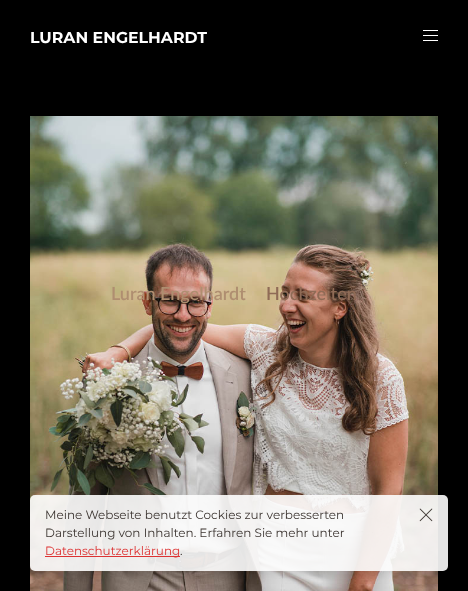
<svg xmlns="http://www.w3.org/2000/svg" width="468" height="591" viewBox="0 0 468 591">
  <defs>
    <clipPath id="clip1"><path d="M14 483H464V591H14ZM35 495H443C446 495 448 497 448 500V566C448 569 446 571 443 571H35C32 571 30 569 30 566V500C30 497 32 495 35 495Z" clip-rule="evenodd"/></clipPath>
  </defs>
  <rect width="100%" height="100%" fill="#000"/>
  <path d="M423 30h15v1H423z" fill="#fff"/>
  <path d="M423 35h15v1H423z" fill="#fff"/>
  <path d="M423 40h15v1H423z" fill="#fff"/>
  <image x="30" y="116" width="408" height="475" href="img/1.png"/>
  <g clip-path="url(#clip1)">
    <rect x="30" y="499" width="418" height="76" rx="5" fill="#0000001a" filter="blur(5px)"/>
  </g>
  <rect x="30" y="495" width="418" height="76" rx="5" fill="#fdfdfde6"/>
  <path d="M45 556h135v1H45z" fill="#d33"/>
  <image x="419" y="508" width="14" height="14" href="img/2.png"/>
  <text x="30" y="43" font-family="Montserrat" font-size="15.75" font-weight="bold" fill="#fff">LURAN ENGELHARDT</text>
  <text x="111" y="300" font-family="Lato" font-size="18" font-weight="600" fill="#af8e70">Luran Engelhardt</text>
  <text x="266" y="300" font-family="Lato" font-size="18" font-weight="600" fill="#8f6b56">Hochzeiten</text>
  <g font-family="Montserrat" font-size="12" fill="#3c3531">
    <text x="45" y="519">Meine Webseite benutzt Cockies zur verbesserten</text>
    <text x="45" y="537">Darstellung von Inhalten. Erfahren Sie mehr unter</text>
  </g>
  <text x="45" y="555" font-family="Montserrat" font-size="12" fill="#d33">Datenschutzerklärung</text>
  <text x="180" y="555" font-family="Montserrat" font-size="12" fill="#3c3531">.</text>
</svg>
